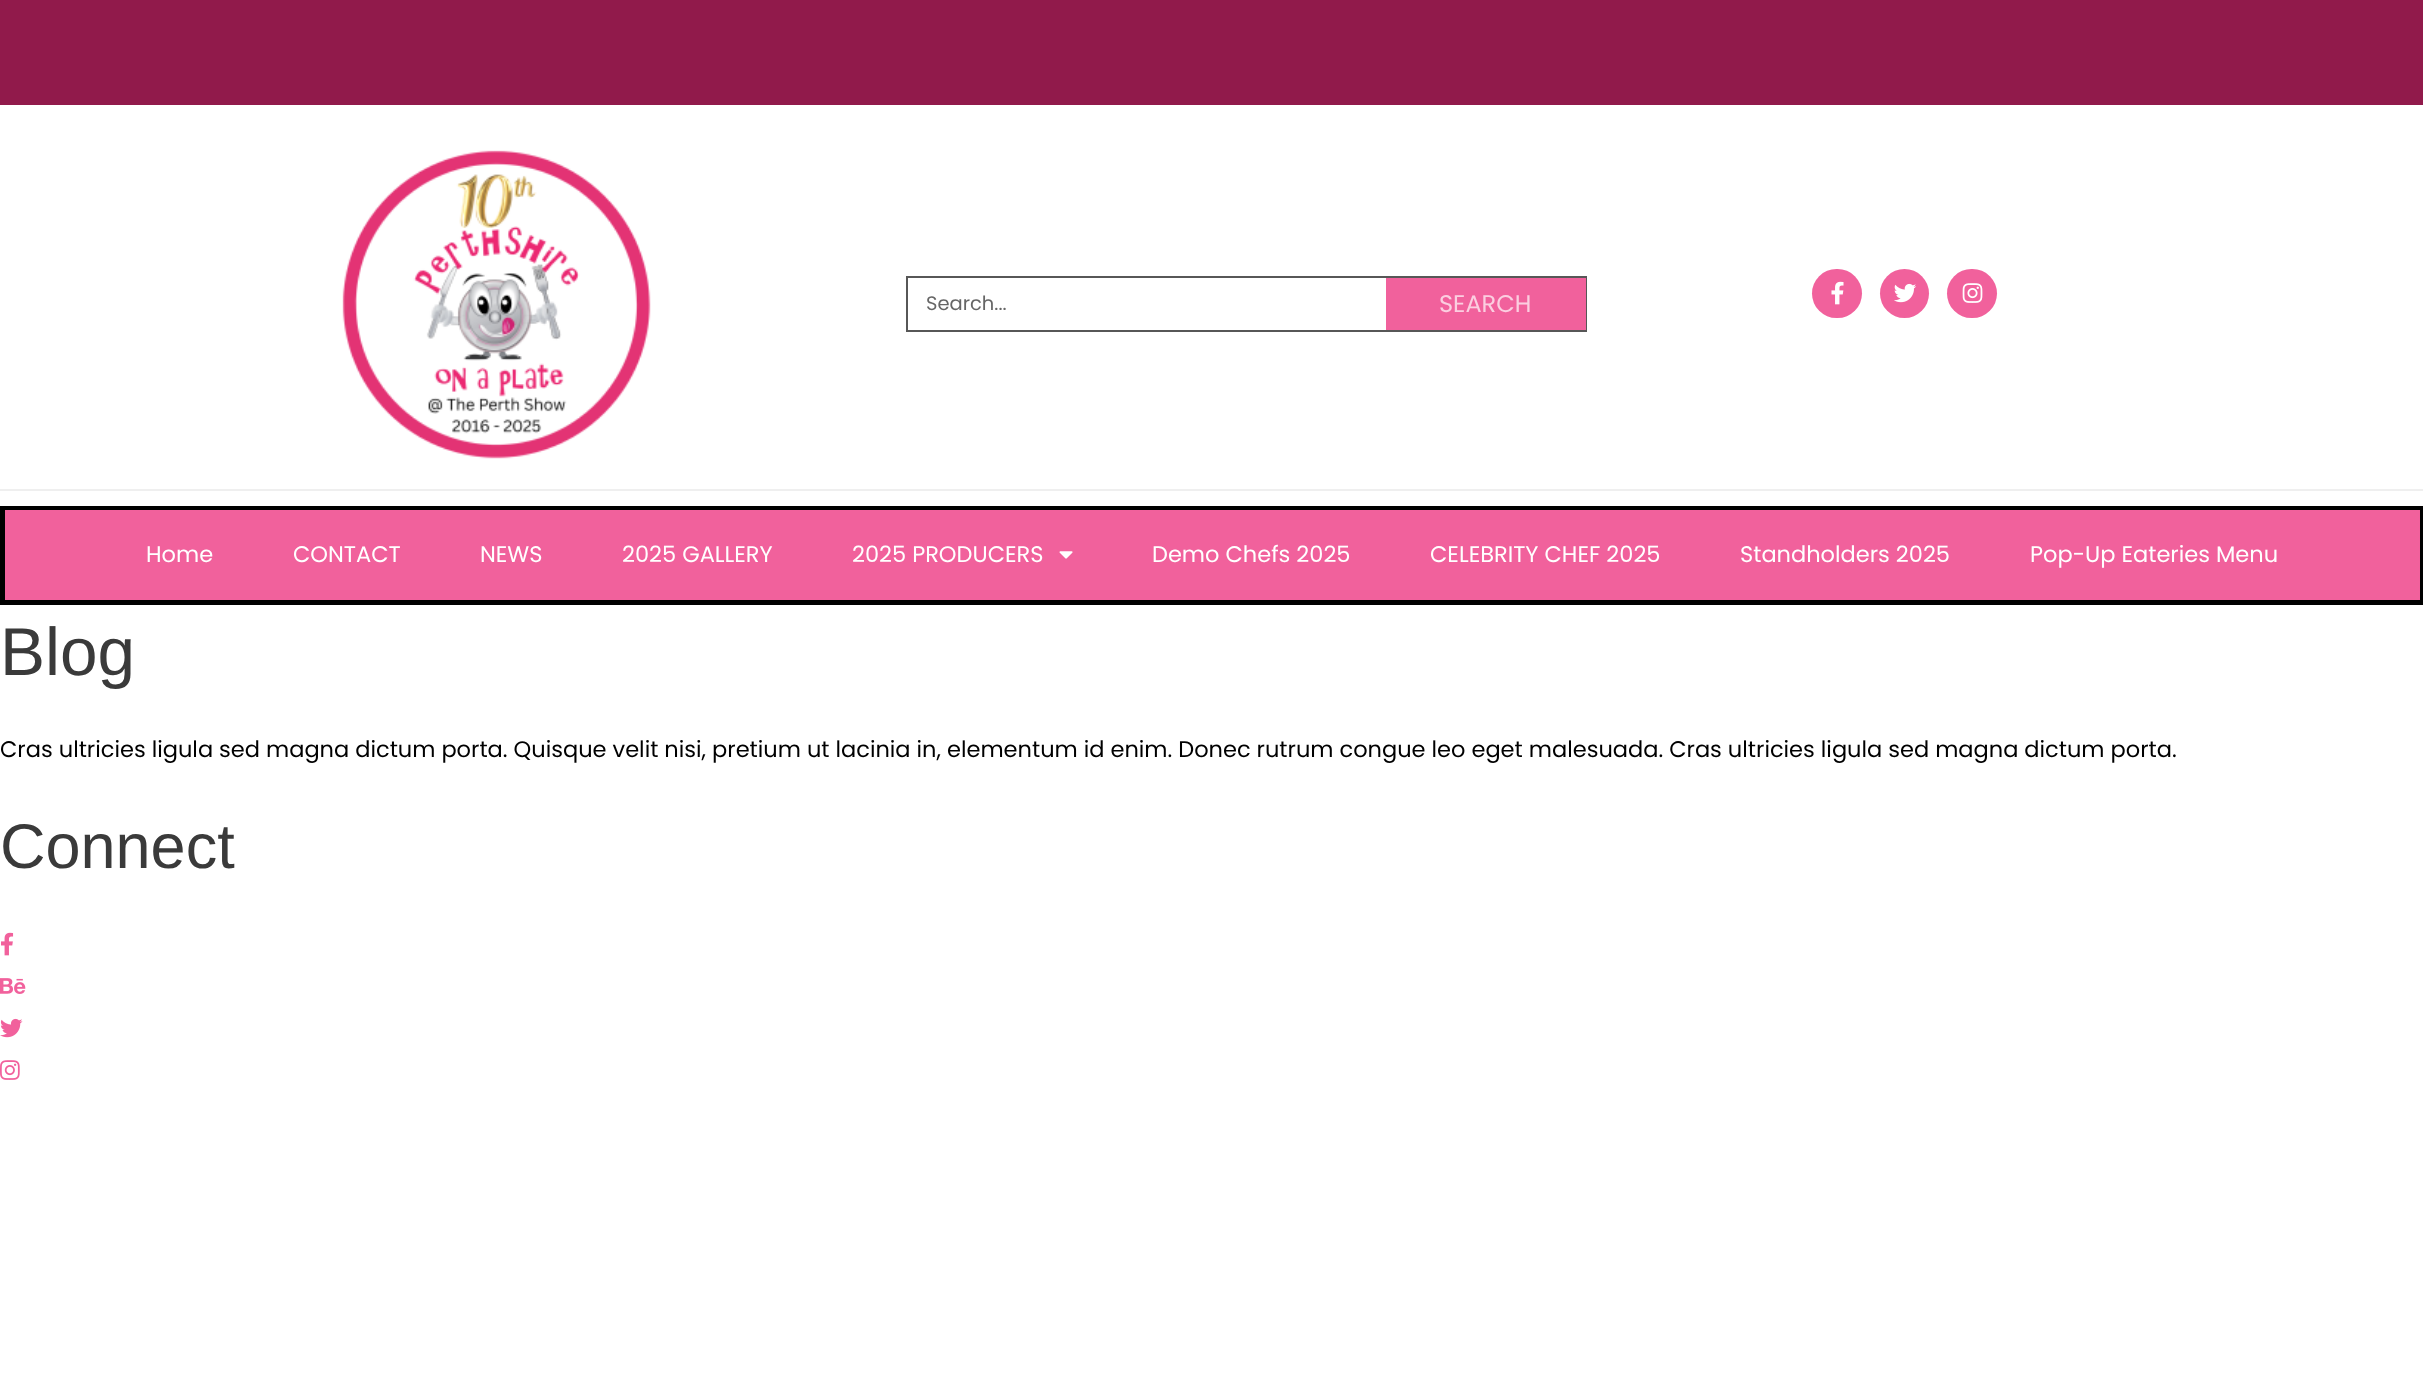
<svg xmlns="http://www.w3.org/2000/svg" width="2423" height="1378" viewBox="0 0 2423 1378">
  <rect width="100%" height="100%" fill="#fff"/>
  <path d="M0 0h2423v105H0z" fill="#911a4b"/>
  <path d="M0 489h2423v2H0z" fill="#efefef"/>
  <image x="342" y="150" width="309" height="309" href="img/1.png"/>
  <path d="M907 277h679v54H907z" fill="none" stroke="#575757" stroke-width="2"/>
  <path d="M1386 278h200v52H1386z" fill="#f1619c"/>
  <rect x="1812" y="269" width="50" height="49" rx="24.5" fill="#f1619c"/>
  <image x="1831" y="281" width="13" height="24" href="img/2.png"/>
  <circle cx="1904.5" cy="293.5" r="24.5" fill="#f1619c"/>
  <image x="1894" y="283" width="23" height="20" href="img/3.png"/>
  <rect x="1947" y="269" width="50" height="49" rx="24.5" fill="#f1619c"/>
  <image x="1962" y="283" width="21" height="20" href="img/4.png"/>
  <path d="M2.5 508.5h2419v94H2.5z" fill="none" stroke="#000" stroke-width="5"/>
  <path d="M5 510h2415v90H5z" fill="#f1619c"/>
  <image x="1059" y="551" width="14" height="8" href="img/5.png"/>
  <image x="1" y="932" width="13" height="24" href="img/6.png"/>
  <image x="0" y="978" width="26" height="16" href="img/7.png"/>
  <image x="0" y="1018" width="23" height="20" href="img/8.png"/>
  <image x="0" y="1060" width="20" height="20" href="img/9.png"/>
  <text x="926" y="310" font-family="Poppins" font-size="19.5" fill="#666">Search...</text>
  <text x="1439" y="312" font-family="Poppins" font-size="24" fill="#fbcee0">SEARCH</text>
  <g font-family="Poppins" font-size="22.5" fill="#fff">
    <text x="146" y="562">Home</text>
    <text x="293" y="562">CONTACT</text>
    <text x="480" y="562">NEWS</text>
    <text x="622" y="562">2025 GALLERY</text>
    <text x="852" y="562">2025 PRODUCERS</text>
    <text x="1152" y="562">Demo Chefs 2025</text>
    <text x="1430" y="562">CELEBRITY CHEF 2025</text>
    <text x="1740" y="562">Standholders 2025</text>
    <text x="2030" y="562">Pop-Up Eateries Menu</text>
  </g>
  <text x="0" y="675" font-family="Liberation Sans" font-size="67.5" fill="#3a3a3a">Blog</text>
  <text x="0" y="757" font-family="Poppins" font-size="22.5" fill="#000">Cras ultricies ligula sed magna dictum porta. Quisque velit nisi, pretium ut lacinia in, elementum id enim. Donec rutrum congue leo eget malesuada. Cras ultricies ligula sed magna dictum porta.</text>
  <text x="0" y="868" font-family="Liberation Sans" font-size="63" fill="#3a3a3a">Connect</text>
</svg>
